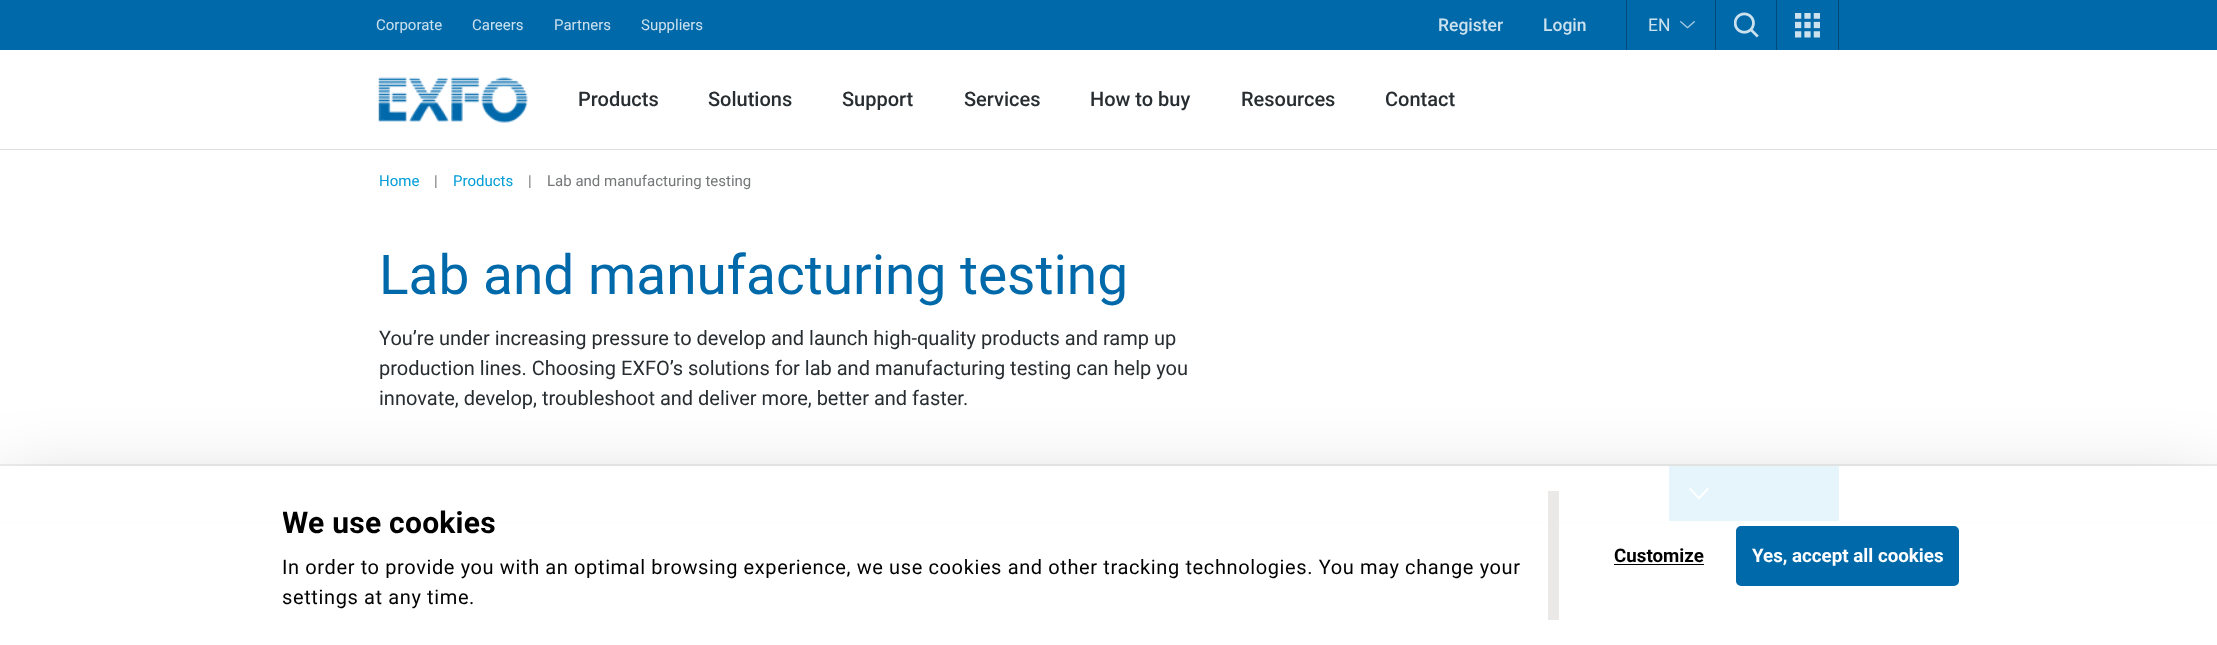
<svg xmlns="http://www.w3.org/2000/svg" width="2217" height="645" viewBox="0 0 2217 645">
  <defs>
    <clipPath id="clip1"><path d="M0 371H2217V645H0ZM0 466H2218V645H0Z" clip-rule="evenodd"/></clipPath>
    <clipPath id="clip2"><path d="M283 499h1276v115H283z"/></clipPath>
  </defs>
  <rect width="100%" height="100%" fill="#fff"/>
  <path d="M0 0h2217v50H0z" fill="#0069aa"/>
  <path d="M1838 0h1v50H1838z" fill="#00497a"/>
  <path d="M1626 0h1v50H1626z" fill="#00497a"/>
  <image x="1680" y="21" width="15" height="8" href="img/1.png"/>
  <path d="M1715 0h1v50H1715z" fill="#00497a"/>
  <image x="1734" y="12" width="25" height="26" href="img/2.png"/>
  <path d="M1776 0h1v50H1776z" fill="#00497a"/>
  <image x="1795" y="13" width="25" height="25" href="img/3.png"/>
  <path d="M0 149h2217v1H0z" fill="#dfdfdf"/>
  <image x="378" y="77" width="150" height="46" href="img/4.png"/>
  <path d="M0 464h2217v3H0z" fill="#eff1f1"/>
  <path d="M0 521h2217v3H0z" fill="#eff1f1"/>
  <path d="M1669 466h170v55H1669z" fill="#009dd6"/>
  <path d="M1709 489L1707.5 487.5L1699 497L1690 487.5L1689 489L1699 499.5Z" fill="#fff"/>
  <g clip-path="url(#clip1)">
    <path d="M0 504h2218v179H0z" fill="#0000004d" filter="blur(44px)"/>
  </g>
  <path d="M0 466h2217v179H0z" fill="#ffffffe6"/>
  <path d="M1548 491h11v129H1548z" fill="#ebe8e8"/>
  <path d="M1614 564h90v1H1614z" fill="#000"/>
  <rect x="1737.5" y="527.5" width="220" height="57" rx="3.5" fill="#0069aa" stroke="#0069aa" stroke-width="3"/>
  <g font-family="Roboto" font-size="15" fill="#cce1ee">
    <text x="376" y="30">Corporate</text>
    <text x="472" y="30">Careers</text>
    <text x="554" y="30">Partners</text>
    <text x="641" y="30">Suppliers</text>
  </g>
  <g font-family="Roboto" font-size="17.5" font-weight="500" fill="#cce1ee">
    <text x="1438" y="31">Register</text>
    <text x="1543" y="31">Login</text>
  </g>
  <text x="1648" y="31" font-family="Roboto" font-size="17.5" fill="#cce1ee">EN</text>
  <g font-family="Roboto" font-size="20" font-weight="500" fill="#272d31">
    <text x="578" y="106">Products</text>
    <text x="708" y="106">Solutions</text>
    <text x="842" y="106">Support</text>
    <text x="964" y="106">Services</text>
    <text x="1090" y="106">How to buy</text>
    <text x="1241" y="106">Resources</text>
    <text x="1385" y="106">Contact</text>
  </g>
  <text x="379" y="186" font-family="Roboto" font-size="15" fill="#009dd6">Home</text>
  <text x="434" y="186" font-family="Roboto" font-size="15" fill="#747778">|</text>
  <text x="453" y="186" font-family="Roboto" font-size="15" fill="#009dd6">Products</text>
  <g font-family="Roboto" font-size="15" fill="#747778">
    <text x="528" y="186">|</text>
    <text x="547" y="186">Lab and manufacturing testing</text>
  </g>
  <text x="379" y="294" font-family="Roboto" font-size="55" fill="#0069aa">Lab and manufacturing testing</text>
  <g font-family="Roboto" font-size="20" fill="#272d31">
    <text x="379" y="345">You’re under increasing pressure to develop and launch high-quality products and ramp up</text>
    <text x="379" y="375">production lines. Choosing EXFO’s solutions for lab and manufacturing testing can help you</text>
    <text x="379" y="405">innovate, develop, troubleshoot and deliver more, better and faster.</text>
  </g>
  <g clip-path="url(#clip2)">
    <text x="282" y="533" font-family="Roboto" font-size="30" font-weight="bold" letter-spacing="0.25" fill="#000">We use cookies</text>
  </g>
  <g font-family="Roboto" font-size="20" letter-spacing="0.62" fill="#000">
    <text x="282" y="574">In order to provide you with an optimal browsing experience, we use cookies and other tracking technologies. You may change your</text>
    <text x="282" y="604">settings at any time.</text>
  </g>
  <text x="1614" y="562" font-family="Roboto" font-size="18.75" font-weight="bold" fill="#000">Customize</text>
  <text x="1752" y="562" font-family="Roboto" font-size="18.75" font-weight="bold" fill="#fff">Yes, accept all cookies</text>
</svg>
